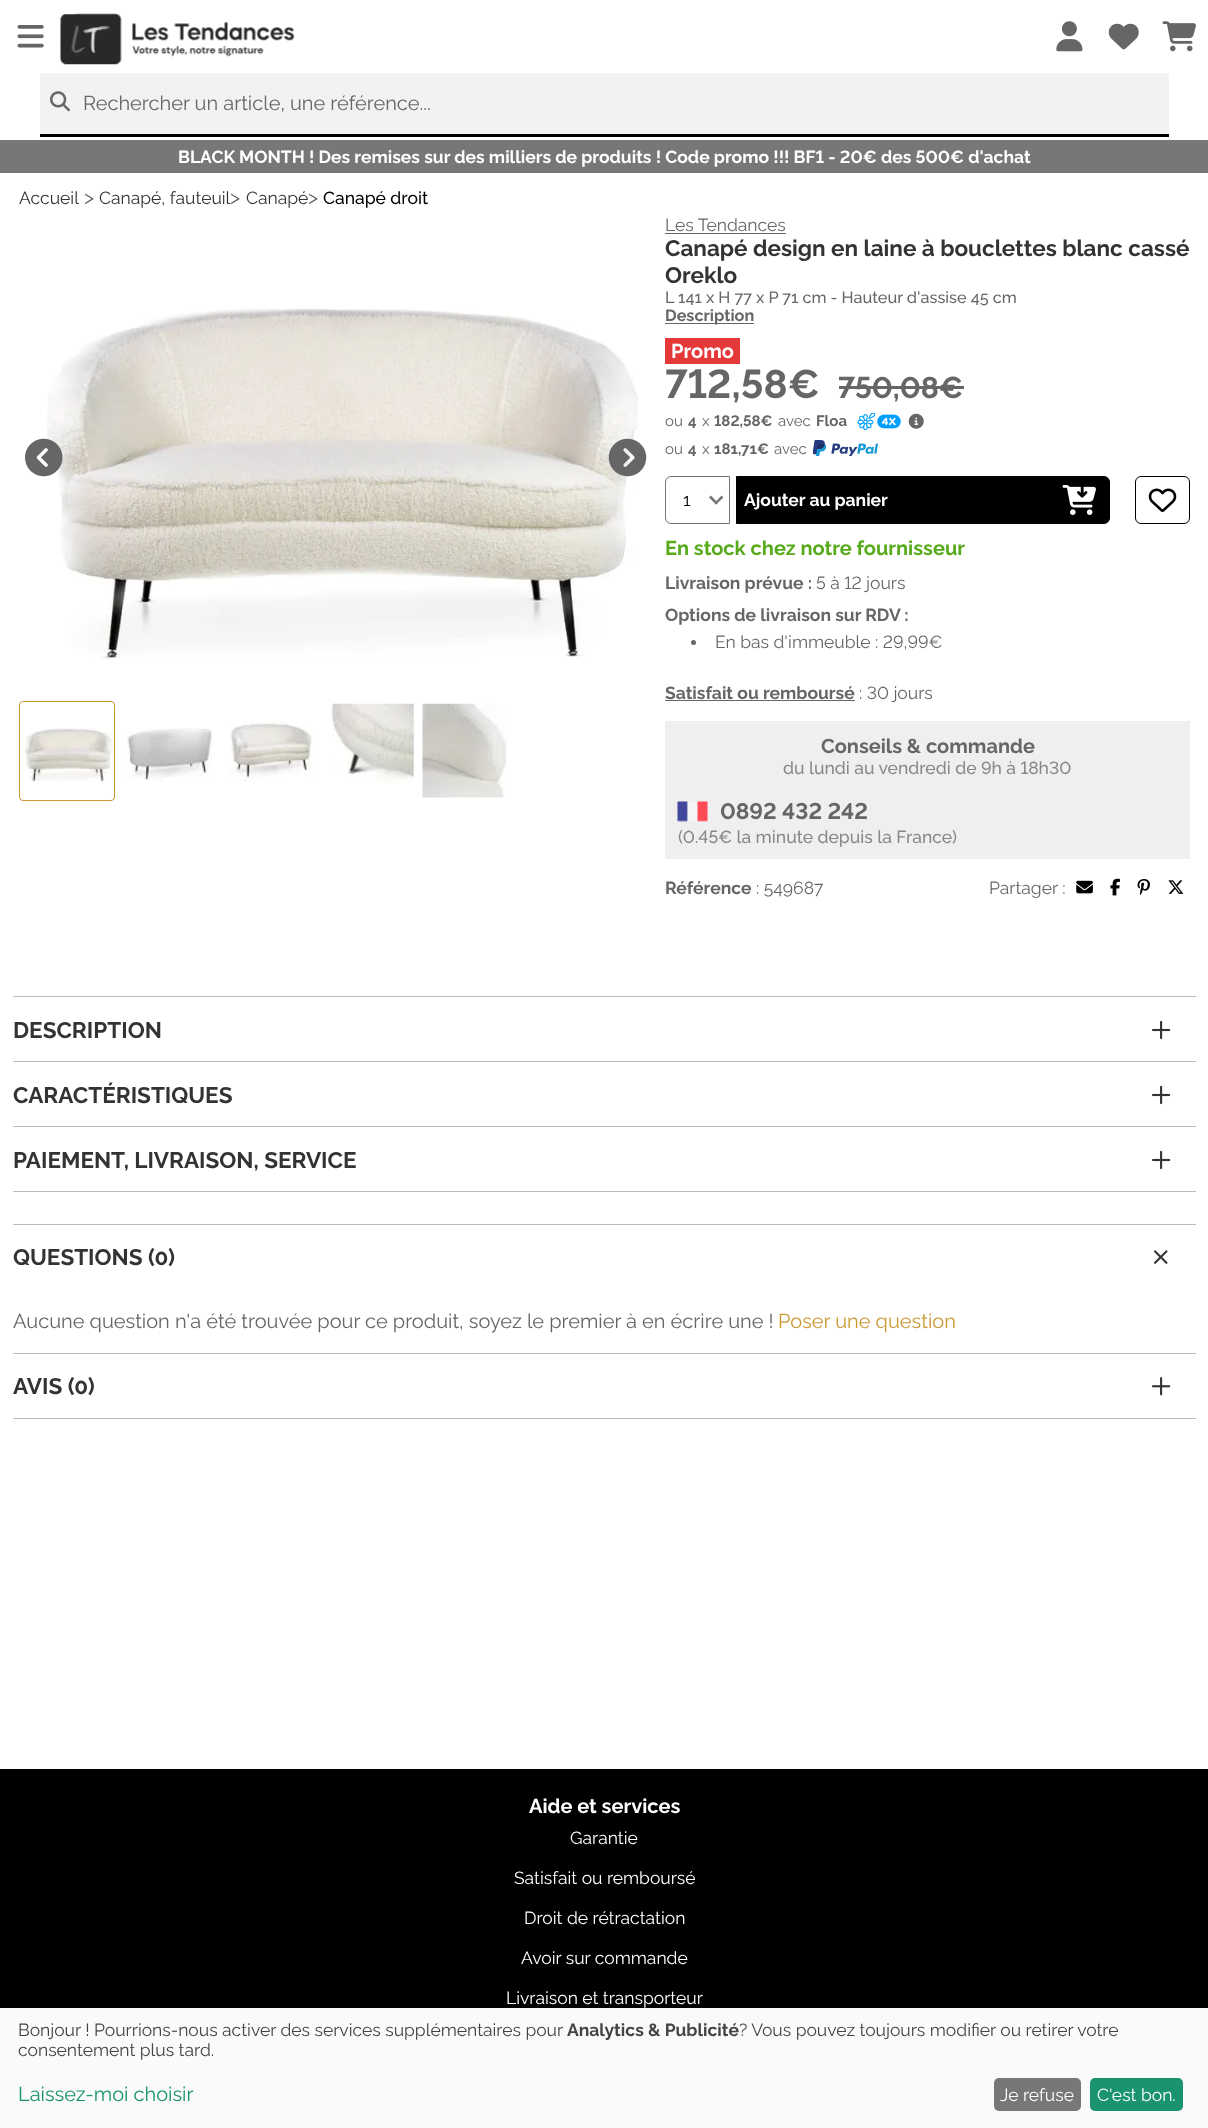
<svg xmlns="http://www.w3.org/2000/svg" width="1208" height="2128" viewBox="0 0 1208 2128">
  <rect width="100%" height="100%" fill="#fff"/>
  <image x="17" y="25" width="27" height="23" href="img/1.png"/>
  <image x="60" y="13" width="235" height="52" href="img/2.png"/>
  <image x="1056" y="21" width="27" height="31" href="img/3.png"/>
  <image x="1108" y="23" width="31" height="27" href="img/4.png"/>
  <image x="1162" y="21" width="34" height="31" href="img/5.png"/>
  <path d="M40 73h1129v61H40z" fill="#f2f2f2"/>
  <image x="50" y="91" width="20" height="21" href="img/6.png"/>
  <path d="M40 134h1129v3H40z" fill="#000"/>
  <path d="M0 140h1208v33H0z" fill="#777"/>
  <image x="47" y="308" width="592" height="352" href="img/8.png"/>
  <image x="25" y="438" width="38" height="39" href="img/7.png"/>
  <image x="608" y="438" width="39" height="39" href="img/9.png"/>
  <rect x="19.5" y="701.5" width="95" height="99" rx="3.5" fill="none" stroke="#c93"/>
  <image x="25" y="728" width="88" height="55" href="img/10.png"/>
  <image x="127" y="728" width="86" height="53" href="img/11.png"/>
  <image x="230" y="721" width="83" height="61" href="img/12.png"/>
  <image x="330" y="703" width="84" height="81" href="img/13.png"/>
  <image x="422" y="703" width="85" height="95" href="img/14.png"/>
  <path d="M665 233h121v1H665z" fill="#666"/>
  <path d="M665 323h89v1H665z" fill="#666"/>
  <path d="M665 338h75v26H665z" fill="#e53838"/>
  <path d="M839 386h125v3H839z" fill="#666"/>
  <image x="857" y="413" width="44" height="17" href="img/15.png"/>
  <image x="908" y="413" width="16" height="16" href="img/16.png"/>
  <image x="813" y="440" width="65" height="16" href="img/17.png"/>
  <path d="M671 476.5H729.5V523.5H671C668 523.5 665.5 521 665.5 518V482C665.5 479 668 476.5 671 476.5Z" fill="none" stroke="#767676"/>
  <path d="M721.5 495.5L723.5 497.5L716 504.5L714.5 503Z" fill="#767676"/>
  <path d="M711 495.5L718 503L716 504.5L709 497.5Z" fill="#767676"/>
  <path d="M736.5 476.5H1104C1107 476.5 1109.5 479 1109.5 482V518C1109.5 521 1107 523.5 1104 523.5H736.5Z" fill="#000" stroke="#000"/>
  <image x="1062" y="485" width="34" height="30" href="img/18.png"/>
  <rect x="1135.5" y="476.5" width="54" height="47" rx="5.5" fill="none" stroke="#000"/>
  <image x="1148" y="488" width="29" height="24" href="img/19.png"/>
  <circle cx="693.5" cy="642.5" r="2.5" fill="#666"/>
  <path d="M665 700h190v1H665z" fill="#666"/>
  <path d="M665 721h525v138H665z" fill="#efefef"/>
  <image x="677" y="801" width="31" height="21" href="img/20.png"/>
  <image x="1076" y="880" width="17" height="14" href="img/21.png"/>
  <image x="1110" y="878" width="10" height="18" href="img/22.png"/>
  <image x="1137" y="879" width="13" height="17" href="img/23.png"/>
  <image x="1168" y="880" width="16" height="14" href="img/24.png"/>
  <path d="M13 996h1183v1H13z" fill="#bdbdbd"/>
  <image x="1152" y="1020" width="19" height="20" href="img/25.png"/>
  <path d="M13 1061h1183v1H13z" fill="#bdbdbd"/>
  <image x="1152" y="1085" width="19" height="20" href="img/25.png"/>
  <path d="M13 1126h1183v1H13z" fill="#bdbdbd"/>
  <path d="M13 1191h1183v1H13z" fill="#bdbdbd"/>
  <image x="1152" y="1150" width="19" height="20" href="img/25.png"/>
  <path d="M13 1224h1183v1H13z" fill="#bdbdbd"/>
  <image x="1154" y="1250" width="14" height="14" href="img/26.png"/>
  <path d="M13 1353h1183v1H13z" fill="#bdbdbd"/>
  <path d="M13 1418h1183v1H13z" fill="#bdbdbd"/>
  <image x="1152" y="1377" width="19" height="19" href="img/27.png"/>
  <path d="M0 1769h1208v239H0z" fill="#000"/>
  <path d="M0 2008h1208v120H0z" fill="#fafafa"/>
  <rect x="994" y="2078" width="87" height="33" rx="5" fill="#777"/>
  <rect x="1090" y="2078" width="93" height="33" rx="5" fill="#1a936f"/>
  <text x="83" y="110" font-family="'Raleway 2'" font-size="20" font-weight="100" fill="#666">Rechercher un article, une référence...</text>
  <text x="178" y="163" font-family="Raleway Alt" font-size="17.5" font-weight="100" fill="#fff">BLACK MONTH ! Des remises sur des milliers de produits ! Code promo !!! BF1 - 20€ des 500€ d'achat</text>
  <text x="19" y="204" font-family="'Raleway 2'" font-size="17.5" font-weight="100" fill="#333">Accueil</text>
  <text x="84" y="204" font-family="'Raleway 2'" font-size="20" font-weight="100" fill="#666">&gt;</text>
  <text x="99" y="204" font-family="'Raleway 2'" font-size="17.5" font-weight="100" fill="#333">Canapé, fauteuil</text>
  <text x="230" y="204" font-family="'Raleway 2'" font-size="20" font-weight="100" fill="#666">&gt;</text>
  <text x="246" y="204" font-family="'Raleway 2'" font-size="17.5" font-weight="100" fill="#333">Canapé</text>
  <text x="308" y="204" font-family="'Raleway 2'" font-size="20" font-weight="100" fill="#666">&gt;</text>
  <text x="323" y="204" font-family="'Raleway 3'" font-size="17.5" font-weight="100" fill="#000">Canapé droit</text>
  <text x="665" y="231" font-family="'Raleway 2'" font-size="17.5" font-weight="100" fill="#666">Les Tendances</text>
  <g font-family="Raleway" font-size="22.5" font-weight="100" fill="#333">
    <text x="665" y="256">Canapé design en laine à bouclettes blanc cassé</text>
    <text x="665" y="283">Oreklo</text>
  </g>
  <text x="665" y="303" font-family="'Raleway 3'" font-size="16.25" font-weight="100" fill="#666">L 141 x H 77 x P 71 cm - Hauteur d'assise 45 cm</text>
  <text x="665" y="321" font-family="Raleway" font-size="16.25" font-weight="100" fill="#666">Description</text>
  <text x="671" y="358" font-family="Raleway" font-size="20" font-weight="100" fill="#fff">Promo</text>
  <text x="665" y="398" font-family="Raleway Alt" font-size="40" font-weight="100" fill="#666">712,58€</text>
  <text x="838" y="398" font-family="Raleway Alt" font-size="30" font-weight="100" fill="#666">750,08€</text>
  <text x="665" y="426" font-family="'Raleway 2'" font-size="15" font-weight="100" fill="#666">ou</text>
  <text x="688" y="426" font-family="Raleway" font-size="15" font-weight="100" fill="#666">4</text>
  <text x="702" y="426" font-family="'Raleway 2'" font-size="15" font-weight="100" fill="#666">x</text>
  <text x="714" y="426" font-family="Raleway Alt" font-size="15" font-weight="100" fill="#666">182,58€</text>
  <text x="778" y="426" font-family="'Raleway 2'" font-size="15" font-weight="100" fill="#666">avec</text>
  <text x="816" y="426" font-family="Raleway" font-size="15" font-weight="100" fill="#666">Floa</text>
  <text x="665" y="454" font-family="'Raleway 2'" font-size="15" font-weight="100" fill="#666">ou</text>
  <text x="688" y="454" font-family="Raleway" font-size="15" font-weight="100" fill="#666">4</text>
  <text x="702" y="454" font-family="'Raleway 2'" font-size="15" font-weight="100" fill="#666">x</text>
  <text x="714" y="454" font-family="Raleway" font-size="15" font-weight="100" fill="#666">181,71€</text>
  <text x="774" y="454" font-family="'Raleway 2'" font-size="15" font-weight="100" fill="#666">avec</text>
  <text x="683" y="506" font-family="'Raleway 2'" font-size="17.5" font-weight="100" fill="#000">1</text>
  <text x="744" y="506" font-family="Raleway" font-size="17.5" font-weight="100" fill="#fff">Ajouter au panier</text>
  <text x="665" y="555" font-family="Raleway" font-size="20" font-weight="100" fill="#57ab1b">En stock chez notre fournisseur</text>
  <text x="665" y="589" font-family="Raleway" font-size="17.5" font-weight="100" fill="#666">Livraison prévue :</text>
  <text x="816" y="589" font-family="'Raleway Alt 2'" font-size="17.5" font-weight="100" fill="#666">5 à 12 jours</text>
  <text x="665" y="621" font-family="Raleway" font-size="17.5" font-weight="100" fill="#666">Options de livraison sur RDV :</text>
  <text x="715" y="648" font-family="'Raleway Alt 2'" font-size="17.5" font-weight="100" fill="#666">En bas d'immeuble : 29,99€</text>
  <text x="665" y="699" font-family="Raleway" font-size="17.5" font-weight="100" fill="#666">Satisfait ou remboursé</text>
  <text x="859" y="699" font-family="'Raleway Alt 2'" font-size="17.5" font-weight="100" fill="#666">: 30 jours</text>
  <text x="821" y="753" font-family="Raleway" font-size="20" font-weight="100" fill="#666">Conseils &amp; commande</text>
  <text x="783" y="774" font-family="'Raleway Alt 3'" font-size="17.5" font-weight="100" fill="#888">du lundi au vendredi de 9h à 18h30</text>
  <text x="720" y="819" font-family="Raleway Alt" font-size="22.5" font-weight="100" fill="#666">0892 432 242</text>
  <text x="678" y="843" font-family="'Raleway Alt 3'" font-size="17.5" font-weight="100" fill="#888">(0.45€ la minute depuis la France)</text>
  <text x="665" y="894" font-family="Raleway" font-size="17.5" font-weight="100" fill="#666">Référence</text>
  <g font-family="'Raleway 2'" font-size="17.5" font-weight="100" fill="#666">
    <text x="756" y="894">: 549687</text>
    <text x="989" y="894">Partager :</text>
  </g>
  <g font-family="Raleway" font-size="22.5" font-weight="100" fill="#333">
    <text x="13" y="1038">DESCRIPTION</text>
    <text x="13" y="1103">CARACTÉRISTIQUES</text>
    <text x="13" y="1168">PAIEMENT, LIVRAISON, SERVICE</text>
    <text x="13" y="1265">QUESTIONS (0)</text>
  </g>
  <text x="13" y="1328" font-family="'Raleway 2'" font-size="20" font-weight="100" fill="#666">Aucune question n'a été trouvée pour ce produit, soyez le premier à en écrire une !</text>
  <text x="778" y="1328" font-family="'Raleway 2'" font-size="20" font-weight="100" fill="#c93">Poser une question</text>
  <text x="13" y="1394" font-family="Raleway" font-size="22.5" font-weight="100" fill="#333">AVIS (0)</text>
  <text x="529" y="1813" font-family="Raleway" font-size="20" font-weight="100" fill="#fff">Aide et services</text>
  <g font-family="'Raleway 2'" font-size="17.5" font-weight="100" fill="#fff">
    <text x="570" y="1844">Garantie</text>
    <text x="514" y="1884">Satisfait ou remboursé</text>
    <text x="524" y="1924">Droit de rétractation</text>
    <text x="521" y="1964">Avoir sur commande</text>
    <text x="506" y="2004">Livraison et transporteur</text>
  </g>
  <text x="18" y="2036" font-family="'Raleway 2'" font-size="17.5" font-weight="100" fill="#444">Bonjour ! Pourrions-nous activer des services supplémentaires pour</text>
  <text x="567" y="2036" font-family="Raleway" font-size="17.5" font-weight="100" fill="#444">Analytics &amp; Publicité</text>
  <g font-family="'Raleway 2'" font-size="17.5" font-weight="100" fill="#444">
    <text x="739" y="2036">? Vous pouvez toujours modifier ou retirer votre</text>
    <text x="18" y="2056">consentement plus tard.</text>
  </g>
  <text x="18" y="2101" font-family="'Raleway 2'" font-size="20" font-weight="100" fill="#1a936f">Laissez-moi choisir</text>
  <g font-family="'Raleway 2'" font-size="17.5" font-weight="100" fill="#fff">
    <text x="1000" y="2101">Je refuse</text>
    <text x="1097" y="2101">C'est bon.</text>
  </g>
</svg>
